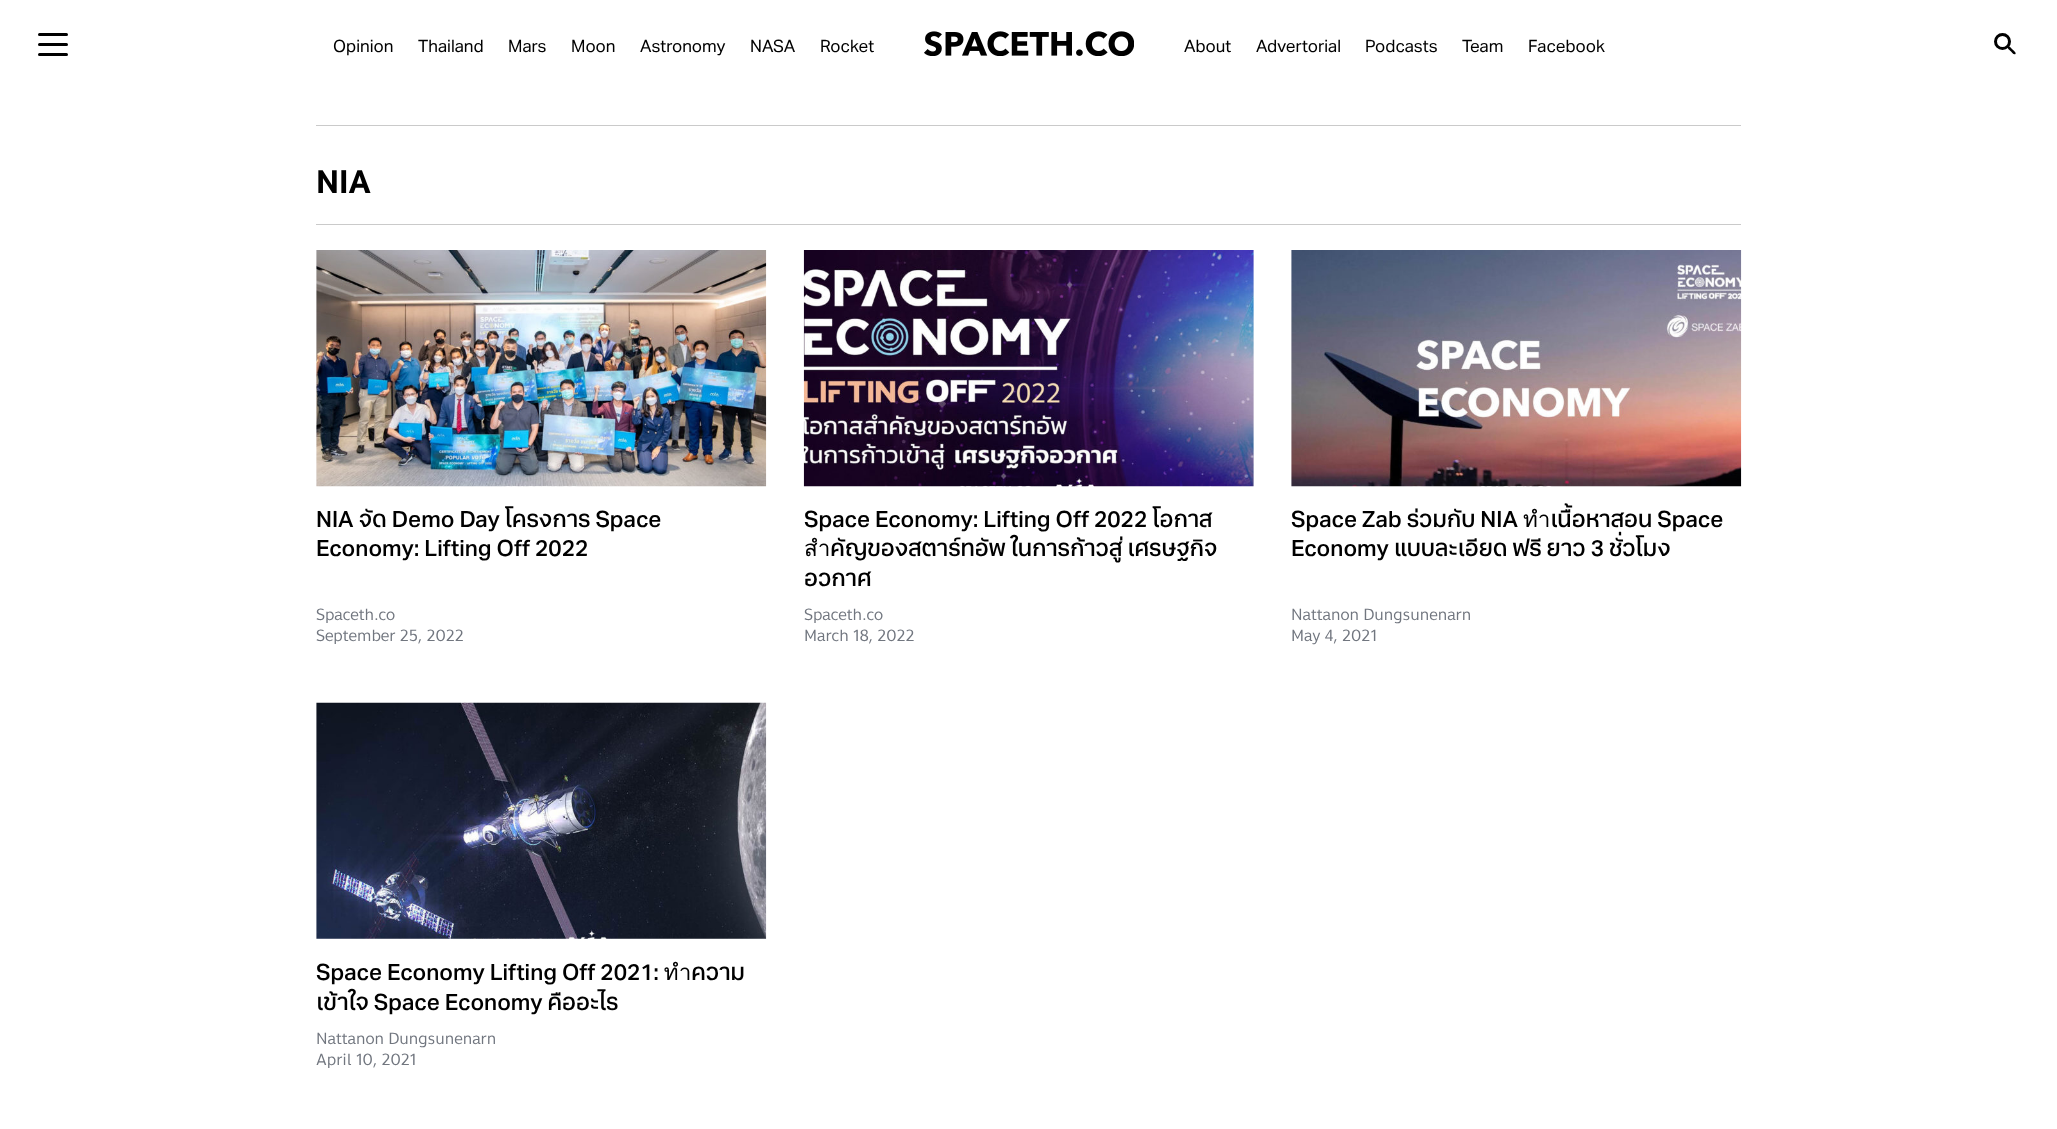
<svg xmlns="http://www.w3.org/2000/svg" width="2057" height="1129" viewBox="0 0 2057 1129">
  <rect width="100%" height="100%" fill="#fff"/>
  <rect x="38" y="43" width="30" height="3" rx="1.5" fill="#000"/>
  <rect x="38" y="33" width="30" height="3" rx="1.5" fill="#000"/>
  <rect x="38" y="53" width="30" height="3" rx="1.5" fill="#000"/>
  <image x="924" y="31" width="210" height="25" href="img/1.png"/>
  <path d="M2008 46.5C2009.5 45 2011.5 48.5 2012.5 49.5C2013 50 2016.5 52.5 2015.5 54C2014 55.5 2011.5 52 2010.5 51C2010 50.5 2006.5 48 2008 46.5Z" fill="#000"/>
  <circle cx="2002.5" cy="41.5" r="7" fill="none" stroke="#000" stroke-width="3"/>
  <path d="M316 125h1425v1H316z" fill="#cacaca"/>
  <path d="M316 224h1425v1H316z" fill="#cacaca"/>
  <path d="M316 250h1v236H316z" fill="#f5f5f7"/>
  <image x="316" y="250" width="451" height="237" href="img/2.png"/>
  <path d="M1253 250h1v236H1253z" fill="#f5f5f7"/>
  <image x="803" y="250" width="451" height="237" href="img/3.png"/>
  <path d="M1291 250h1v236H1291z" fill="#f5f5f7"/>
  <image x="1291" y="250" width="451" height="237" href="img/4.png"/>
  <path d="M316 703h450v236H316z" fill="#f5f5f7"/>
  <image x="316" y="702" width="451" height="237" href="img/5.png"/>
  <g font-family="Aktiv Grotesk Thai" font-size="17" fill="#000">
    <text x="333" y="52">Opinion</text>
    <text x="418" y="52">Thailand</text>
    <text x="508" y="52">Mars</text>
    <text x="571" y="52">Moon</text>
    <text x="640" y="52">Astronomy</text>
    <text x="750" y="52">NASA</text>
    <text x="820" y="52">Rocket</text>
    <text x="1184" y="52">About</text>
    <text x="1256" y="52">Advertorial</text>
    <text x="1365" y="52">Podcasts</text>
    <text x="1462" y="52">Team</text>
    <text x="1528" y="52">Facebook</text>
  </g>
  <text x="316" y="193" font-family="Aktiv Grotesk Thai" font-size="32" font-weight="bold" fill="#000">NIA</text>
  <g font-family="Aktiv Grotesk Thai" font-size="22.5" font-weight="500" fill="#000">
    <text x="316" y="527">NIA จัด Demo Day โครงการ Space</text>
    <text x="316" y="556">Economy: Lifting Off 2022</text>
  </g>
  <g font-family="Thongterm" font-size="16" fill="#71767f">
    <text x="316" y="620">Spaceth.co</text>
    <text x="316" y="641">September 25, 2022</text>
  </g>
  <g font-family="Aktiv Grotesk Thai" font-size="22.5" font-weight="500" fill="#000">
    <text x="804" y="527">Space Economy: Lifting Off 2022 โอกาส</text>
    <text x="804" y="556">สำคัญของสตาร์ทอัพ ในการก้าวสู่ เศรษฐกิจ</text>
    <text x="804" y="586">อวกาศ</text>
  </g>
  <g font-family="Thongterm" font-size="16" fill="#71767f">
    <text x="804" y="620">Spaceth.co</text>
    <text x="804" y="641">March 18, 2022</text>
  </g>
  <g font-family="Aktiv Grotesk Thai" font-size="22.5" font-weight="500" fill="#000">
    <text x="1291" y="527">Space Zab ร่วมกับ NIA ทำเนื้อหาสอน Space</text>
    <text x="1291" y="556">Economy แบบละเอียด ฟรี ยาว 3 ชั่วโมง</text>
  </g>
  <g font-family="Thongterm" font-size="16" fill="#71767f">
    <text x="1291" y="620">Nattanon Dungsunenarn</text>
    <text x="1291" y="641">May 4, 2021</text>
  </g>
  <g font-family="Aktiv Grotesk Thai" font-size="22.5" font-weight="500" fill="#000">
    <text x="316" y="980">Space Economy Lifting Off 2021: ทำความ</text>
    <text x="316" y="1010">เข้าใจ Space Economy คืออะไร</text>
  </g>
  <g font-family="Thongterm" font-size="16" fill="#71767f">
    <text x="316" y="1044">Nattanon Dungsunenarn</text>
    <text x="316" y="1065">April 10, 2021</text>
  </g>
</svg>
